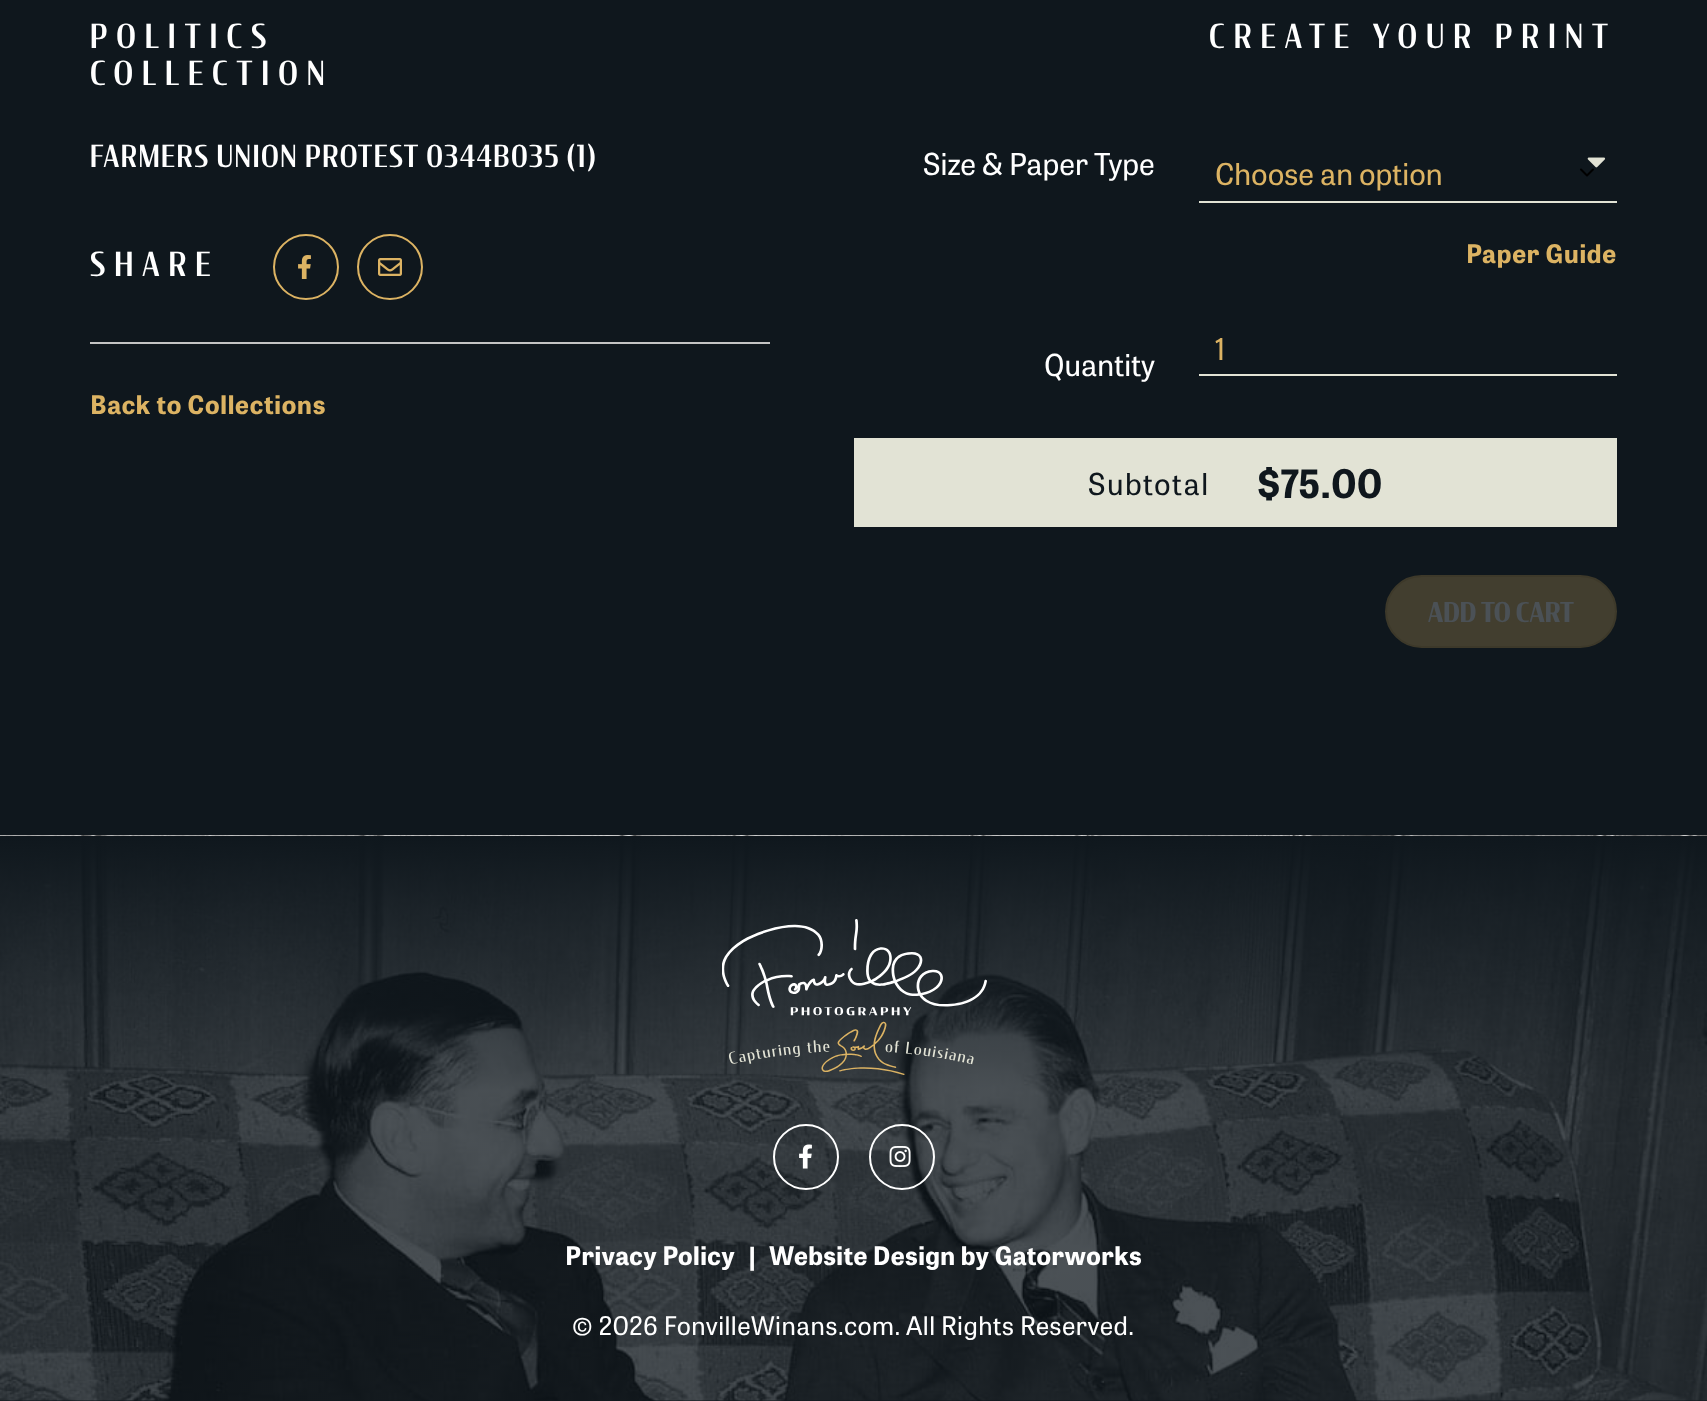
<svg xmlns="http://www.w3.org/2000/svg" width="1707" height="1401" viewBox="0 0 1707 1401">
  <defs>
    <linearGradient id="g1" gradientUnits="userSpaceOnUse" x1="854" y1="836" x2="854" y2="1401"><stop offset="0" stop-color="#0f171d"/><stop offset="0.45" stop-color="#0f171d" stop-opacity="0.75"/><stop offset="1" stop-color="#0f171d" stop-opacity="0.75"/></linearGradient>
  </defs>
  <rect width="100%" height="100%" fill="#0f171d"/>
  <circle cx="306" cy="267" r="32" fill="none" stroke="#dcb363" stroke-width="2"/>
  <image x="298" y="255" width="13" height="24" href="img/1.png"/>
  <circle cx="390" cy="267" r="32" fill="none" stroke="#dcb363" stroke-width="2"/>
  <image x="378" y="258" width="24" height="18" href="img/2.png"/>
  <path d="M90 342h680v2H90z" fill="#c4c4c4"/>
  <path d="M1581 169.5L1587 175.5L1593 169.5" fill="none" stroke="#000" stroke-width="2" stroke-linecap="round" stroke-linejoin="round"/>
  <path d="M1199 201h418v2H1199z" fill="#e2e3d5"/>
  <image x="1587" y="157" width="19" height="11" href="img/3.png"/>
  <path d="M1199 374h418v2H1199z" fill="#e2e3d5"/>
  <path d="M854 438h763v89H854z" fill="#e2e3d5"/>
  <rect x="1386" y="576" width="230" height="71" rx="35.5" fill="#423e2f" stroke="#3d392a" stroke-width="2"/>
  <image x="0" y="835" width="1707" height="566" href="img/4.png"/>
  <path d="M0 836h1707v565H0z" fill="url(#g1)"/>
  <image x="722" y="919" width="265" height="156" href="img/5.png"/>
  <circle cx="806" cy="1157" r="32" fill="none" stroke="#fff" stroke-width="2"/>
  <image x="799" y="1144" width="13" height="25" href="img/6.png"/>
  <circle cx="902" cy="1157" r="32" fill="none" stroke="#fff" stroke-width="2"/>
  <image x="889" y="1146" width="22" height="21" href="img/7.png"/>
  <g font-family="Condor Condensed" font-size="33" font-weight="500" letter-spacing="9" fill="#fff">
    <text x="90" y="48">POLITICS</text>
    <text x="90" y="85">COLLECTION</text>
  </g>
  <text x="90" y="167" font-family="Condor Condensed" font-size="30" font-weight="500" letter-spacing="1.5" fill="#fff">FARMERS UNION PROTEST 0344B035 (1)</text>
  <text x="90" y="276" font-family="Condor Condensed" font-size="33" font-weight="500" letter-spacing="9" fill="#fff">SHARE</text>
  <text x="90" y="414" font-family="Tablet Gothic" font-size="25.5" font-weight="bold" letter-spacing="0.75" fill="#dcb363">Back to Collections</text>
  <text x="1209" y="48" font-family="Condor Condensed" font-size="33" font-weight="500" letter-spacing="9" fill="#fff">CREATE YOUR PRINT</text>
  <text x="923" y="175" font-family="Tablet Gothic" font-size="30" fill="#fff">Size &amp; Paper Type</text>
  <text x="1215" y="185" font-family="Tablet Gothic" font-size="30" fill="#dcb363">Choose an option</text>
  <text x="1466" y="263" font-family="Tablet Gothic" font-size="25.5" font-weight="bold" letter-spacing="0.75" fill="#dcb363">Paper Guide</text>
  <text x="1215" y="360" font-family="Tablet Gothic" font-size="30" fill="#dcb363">1</text>
  <text x="1044" y="376" font-family="Tablet Gothic" font-size="30" fill="#fff">Quantity</text>
  <text x="1088" y="495" font-family="Tablet Gothic" font-size="30" letter-spacing="1.5" fill="#0f171d">Subtotal</text>
  <text x="1257" y="498" font-family="Tablet Gothic" font-size="39" font-weight="bold" fill="#0f171d">$75.00</text>
  <text x="1428" y="622" font-family="Condor Condensed" font-size="27" font-weight="bold" fill="#4b5156">ADD TO CART</text>
  <text x="565" y="1265" font-family="Tablet Gothic" font-size="25.5" font-weight="bold" letter-spacing="0.45" fill="#fff">Privacy Policy</text>
  <text x="749" y="1265" font-family="Tablet Gothic" font-size="24" font-weight="bold" fill="#fff">|</text>
  <text x="769" y="1265" font-family="Tablet Gothic" font-size="25.5" font-weight="bold" letter-spacing="0.45" fill="#fff">Website Design by Gatorworks</text>
  <text x="572" y="1335" font-family="Tablet Gothic" font-size="25.5" letter-spacing="0.45" fill="#fff">© 2026 FonvilleWinans.com. All Rights Reserved.</text>
</svg>
